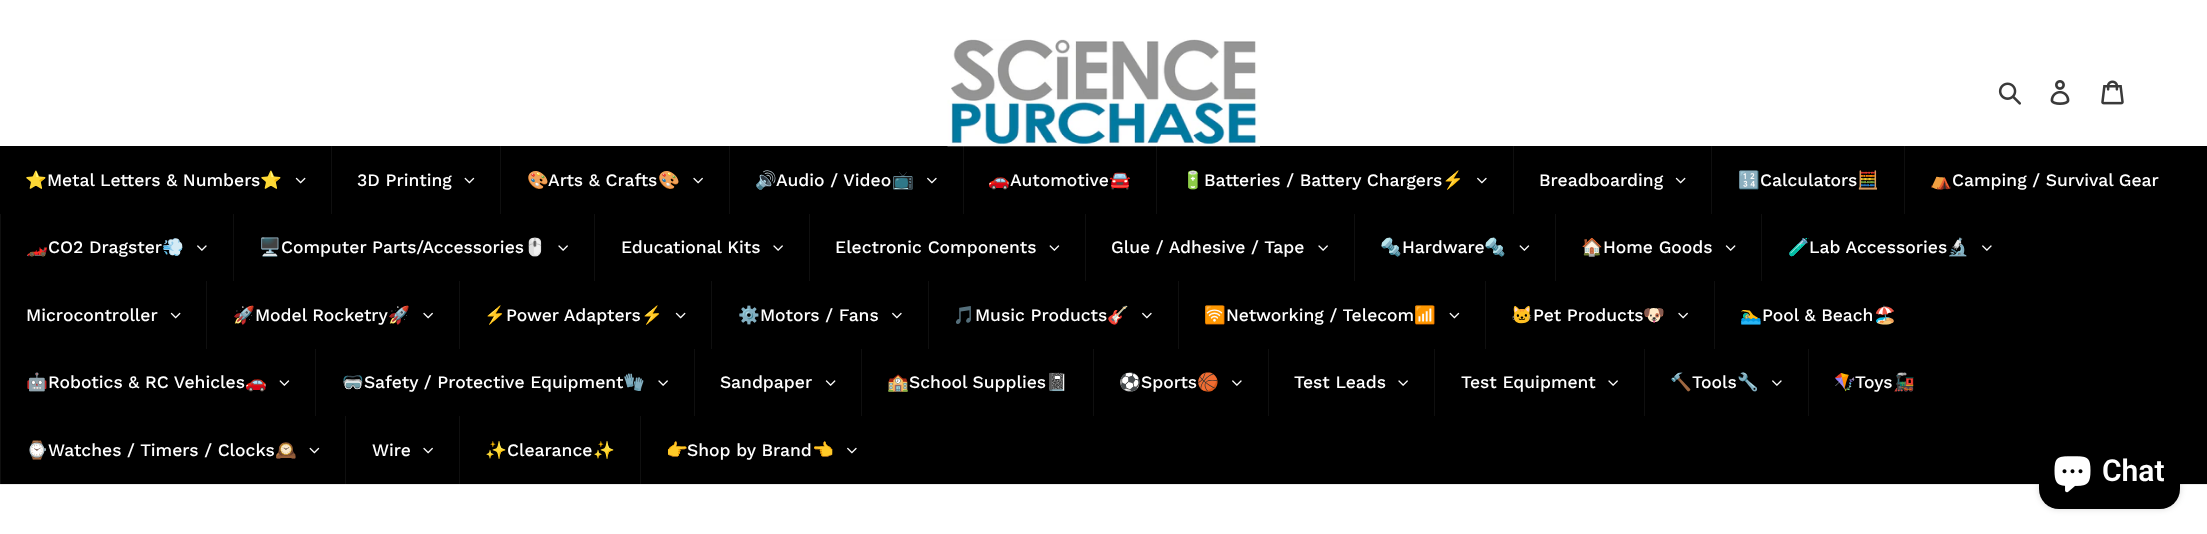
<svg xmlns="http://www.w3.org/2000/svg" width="2207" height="534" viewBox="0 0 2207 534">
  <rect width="100%" height="100%" fill="#fff"/>
  <path d="M0 146h2207v338H0z" fill="#000"/>
  <path d="M963 146h1v68H963z" fill="#0f0f0f"/>
  <path d="M1156 146h1v68H1156z" fill="#0f0f0f"/>
  <image x="947" y="39" width="313" height="108" href="img/1.png"/>
  <image x="1998" y="82" width="23" height="23" href="img/2.png"/>
  <image x="2050" y="80" width="20" height="25" href="img/3.png"/>
  <image x="2101" y="80" width="23" height="25" href="img/4.png"/>
  <path d="M0 484h2207v1H0z" fill="#ebebeb"/>
  <image x="295" y="177" width="11" height="7" href="img/5.png"/>
  <path d="M331 146h1v68H331z" fill="#0f0f0f"/>
  <image x="464" y="177" width="11" height="7" href="img/6.png"/>
  <path d="M500 146h1v68H500z" fill="#0f0f0f"/>
  <image x="693" y="177" width="10" height="7" href="img/7.png"/>
  <path d="M729 146h1v68H729z" fill="#0f0f0f"/>
  <image x="927" y="177" width="10" height="7" href="img/8.png"/>
  <image x="1477" y="177" width="10" height="7" href="img/8.png"/>
  <path d="M1513 146h1v68H1513z" fill="#0f0f0f"/>
  <image x="1675" y="177" width="11" height="7" href="img/5.png"/>
  <path d="M1711 146h1v68H1711z" fill="#0f0f0f"/>
  <path d="M1904 146h1v68H1904z" fill="#0f0f0f"/>
  <path d="M0 214h1v270H0z" fill="#0f0f0f"/>
  <image x="197" y="245" width="10" height="6" href="img/9.png"/>
  <path d="M233 214h1v67H233z" fill="#0f0f0f"/>
  <image x="558" y="245" width="10" height="6" href="img/10.png"/>
  <path d="M594 214h1v67H594z" fill="#0f0f0f"/>
  <image x="773" y="245" width="10" height="6" href="img/10.png"/>
  <path d="M809 214h1v67H809z" fill="#0f0f0f"/>
  <image x="1049" y="245" width="11" height="6" href="img/11.png"/>
  <path d="M1085 214h1v67H1085z" fill="#0f0f0f"/>
  <image x="1318" y="245" width="10" height="6" href="img/10.png"/>
  <path d="M1354 214h1v67H1354z" fill="#0f0f0f"/>
  <image x="1519" y="245" width="11" height="6" href="img/11.png"/>
  <path d="M1555 214h1v67H1555z" fill="#0f0f0f"/>
  <image x="1725" y="245" width="11" height="6" href="img/12.png"/>
  <path d="M1761 214h1v67H1761z" fill="#0f0f0f"/>
  <image x="1982" y="245" width="10" height="6" href="img/9.png"/>
  <image x="170" y="312" width="11" height="7" href="img/5.png"/>
  <path d="M206 281h1v68H206z" fill="#0f0f0f"/>
  <image x="423" y="312" width="10" height="7" href="img/7.png"/>
  <path d="M459 281h1v68H459z" fill="#0f0f0f"/>
  <image x="675" y="312" width="11" height="7" href="img/5.png"/>
  <path d="M711 281h1v68H711z" fill="#0f0f0f"/>
  <image x="892" y="312" width="10" height="7" href="img/8.png"/>
  <path d="M928 281h1v68H928z" fill="#0f0f0f"/>
  <image x="1142" y="312" width="10" height="7" href="img/8.png"/>
  <path d="M1178 281h1v68H1178z" fill="#0f0f0f"/>
  <image x="1449" y="312" width="11" height="7" href="img/6.png"/>
  <path d="M1485 281h1v68H1485z" fill="#0f0f0f"/>
  <image x="1678" y="312" width="10" height="7" href="img/7.png"/>
  <path d="M1714 281h1v68H1714z" fill="#0f0f0f"/>
  <image x="279" y="380" width="11" height="6" href="img/11.png"/>
  <path d="M315 349h1v67H315z" fill="#0f0f0f"/>
  <image x="658" y="380" width="10" height="6" href="img/10.png"/>
  <path d="M694 349h1v67H694z" fill="#0f0f0f"/>
  <image x="825" y="380" width="11" height="6" href="img/12.png"/>
  <path d="M861 349h1v67H861z" fill="#0f0f0f"/>
  <path d="M1093 349h1v67H1093z" fill="#0f0f0f"/>
  <image x="1232" y="380" width="10" height="6" href="img/9.png"/>
  <path d="M1268 349h1v67H1268z" fill="#0f0f0f"/>
  <image x="1398" y="380" width="10" height="6" href="img/10.png"/>
  <path d="M1434 349h1v67H1434z" fill="#0f0f0f"/>
  <image x="1608" y="380" width="10" height="6" href="img/10.png"/>
  <path d="M1644 349h1v67H1644z" fill="#0f0f0f"/>
  <image x="1772" y="380" width="10" height="6" href="img/9.png"/>
  <path d="M1808 349h1v67H1808z" fill="#0f0f0f"/>
  <image x="309" y="447" width="11" height="7" href="img/6.png"/>
  <path d="M345 416h1v68H345z" fill="#0f0f0f"/>
  <image x="423" y="447" width="10" height="7" href="img/7.png"/>
  <path d="M459 416h1v68H459z" fill="#0f0f0f"/>
  <path d="M640 416h1v68H640z" fill="#0f0f0f"/>
  <image x="847" y="447" width="10" height="7" href="img/8.png"/>
  <rect x="2039" y="434" width="141" height="75" rx="20" fill="#00000026" filter="blur(3px)"/>
  <rect x="2039" y="434" width="141" height="75" rx="20" fill="#000"/>
  <image x="2054" y="456" width="37" height="37" href="img/13.png"/>
  <text x="25" y="186" font-family="Noto Color Emoji" font-size="17.5" fill="#fff">⭐</text>
  <text x="47" y="186" font-family="Work Sans" font-size="17.5" font-weight="500" fill="#fff">Metal Letters &amp; Numbers</text>
  <text x="260" y="186" font-family="Noto Color Emoji" font-size="17.5" fill="#fff">⭐</text>
  <text x="357" y="186" font-family="Work Sans" font-size="17.5" font-weight="500" fill="#fff">3D Printing</text>
  <text x="527" y="186" font-family="Noto Color Emoji" font-size="17.5" fill="#fff">🎨</text>
  <text x="548" y="186" font-family="Work Sans" font-size="17.5" font-weight="500" fill="#fff">Arts &amp; Crafts</text>
  <g font-family="Noto Color Emoji" font-size="17.5" fill="#fff">
    <text x="658" y="186">🎨</text>
    <text x="755" y="186">🔊</text>
  </g>
  <text x="776" y="186" font-family="Work Sans" font-size="17.5" font-weight="500" fill="#fff">Audio / Video</text>
  <g font-family="Noto Color Emoji" font-size="17.5" fill="#fff">
    <text x="892" y="186">📺</text>
    <text x="988" y="186">🚗</text>
  </g>
  <text x="1010" y="186" font-family="Work Sans" font-size="17.5" font-weight="500" fill="#fff">Automotive</text>
  <g font-family="Noto Color Emoji" font-size="17.5" fill="#fff">
    <text x="1109" y="186">🚘</text>
    <text x="1182" y="186">🔋</text>
  </g>
  <text x="1204" y="186" font-family="Work Sans" font-size="17.5" font-weight="500" fill="#fff">Batteries / Battery Chargers</text>
  <text x="1442" y="186" font-family="Noto Color Emoji" font-size="17.5" fill="#fff">⚡</text>
  <text x="1539" y="186" font-family="Work Sans" font-size="17.5" font-weight="500" fill="#fff">Breadboarding</text>
  <text x="1738" y="186" font-family="Noto Color Emoji" font-size="17.5" fill="#fff">🔢</text>
  <text x="1760" y="186" font-family="Work Sans" font-size="17.5" font-weight="500" fill="#fff">Calculators</text>
  <g font-family="Noto Color Emoji" font-size="17.5" fill="#fff">
    <text x="1857" y="186">🧮</text>
    <text x="1930" y="186">⛺</text>
  </g>
  <text x="1952" y="186" font-family="Work Sans" font-size="17.5" font-weight="500" fill="#fff">Camping / Survival Gear</text>
  <text x="26" y="253" font-family="Noto Color Emoji" font-size="17.5" fill="#fff">🏎️</text>
  <text x="48" y="253" font-family="Work Sans" font-size="17.5" font-weight="500" fill="#fff">CO2 Dragster</text>
  <g font-family="Noto Color Emoji" font-size="17.5" fill="#fff">
    <text x="162" y="253">💨</text>
    <text x="259" y="253">🖥️</text>
  </g>
  <text x="281" y="253" font-family="Work Sans" font-size="17.5" font-weight="500" fill="#fff">Computer Parts/Accessories</text>
  <text x="524" y="253" font-family="Noto Color Emoji" font-size="17.5" fill="#fff">🖱️</text>
  <g font-family="Work Sans" font-size="17.5" font-weight="500" fill="#fff">
    <text x="621" y="253">Educational Kits</text>
    <text x="835" y="253">Electronic Components</text>
    <text x="1111" y="253">Glue / Adhesive / Tape</text>
  </g>
  <text x="1380" y="253" font-family="Noto Color Emoji" font-size="17.5" fill="#fff">🔩</text>
  <text x="1402" y="253" font-family="Work Sans" font-size="17.5" font-weight="500" fill="#fff">Hardware</text>
  <g font-family="Noto Color Emoji" font-size="17.5" fill="#fff">
    <text x="1484" y="253">🔩</text>
    <text x="1581" y="253">🏠</text>
  </g>
  <text x="1603" y="253" font-family="Work Sans" font-size="17.5" font-weight="500" fill="#fff">Home Goods</text>
  <text x="1788" y="253" font-family="Noto Color Emoji" font-size="17.5" fill="#fff">🧪</text>
  <text x="1809" y="253" font-family="Work Sans" font-size="17.5" font-weight="500" fill="#fff">Lab Accessories</text>
  <text x="1947" y="253" font-family="Noto Color Emoji" font-size="17.5" fill="#fff">🔬</text>
  <text x="26" y="321" font-family="Work Sans" font-size="17.5" font-weight="500" fill="#fff">Microcontroller</text>
  <text x="233" y="321" font-family="Noto Color Emoji" font-size="17.5" fill="#fff">🚀</text>
  <text x="255" y="321" font-family="Work Sans" font-size="17.5" font-weight="500" fill="#fff">Model Rocketry</text>
  <g font-family="Noto Color Emoji" font-size="17.5" fill="#fff">
    <text x="388" y="321">🚀</text>
    <text x="484" y="321">⚡</text>
  </g>
  <text x="506" y="321" font-family="Work Sans" font-size="17.5" font-weight="500" fill="#fff">Power Adapters</text>
  <g font-family="Noto Color Emoji" font-size="17.5" fill="#fff">
    <text x="641" y="321">⚡</text>
    <text x="738" y="321">⚙️</text>
  </g>
  <text x="760" y="321" font-family="Work Sans" font-size="17.5" font-weight="500" fill="#fff">Motors / Fans</text>
  <text x="953" y="321" font-family="Noto Color Emoji" font-size="17.5" fill="#fff">🎵</text>
  <text x="975" y="321" font-family="Work Sans" font-size="17.5" font-weight="500" fill="#fff">Music Products</text>
  <g font-family="Noto Color Emoji" font-size="17.5" fill="#fff">
    <text x="1107" y="321">🎸</text>
    <text x="1204" y="321">🛜</text>
  </g>
  <text x="1226" y="321" font-family="Work Sans" font-size="17.5" font-weight="500" fill="#fff">Networking / Telecom</text>
  <g font-family="Noto Color Emoji" font-size="17.5" fill="#fff">
    <text x="1414" y="321">📶</text>
    <text x="1511" y="321">🐱</text>
  </g>
  <text x="1533" y="321" font-family="Work Sans" font-size="17.5" font-weight="500" fill="#fff">Pet Products</text>
  <g font-family="Noto Color Emoji" font-size="17.5" fill="#fff">
    <text x="1643" y="321">🐶</text>
    <text x="1740" y="321">🏊‍♂️</text>
  </g>
  <text x="1762" y="321" font-family="Work Sans" font-size="17.5" font-weight="500" fill="#fff">Pool &amp; Beach</text>
  <g font-family="Noto Color Emoji" font-size="17.5" fill="#fff">
    <text x="1874" y="321">🏖</text>
    <text x="26" y="388">🤖</text>
  </g>
  <text x="48" y="388" font-family="Work Sans" font-size="17.5" font-weight="500" fill="#fff">Robotics &amp; RC Vehicles</text>
  <g font-family="Noto Color Emoji" font-size="17.5" fill="#fff">
    <text x="245" y="388">🚗</text>
    <text x="342" y="388">🥽</text>
  </g>
  <text x="364" y="388" font-family="Work Sans" font-size="17.5" font-weight="500" fill="#fff">Safety / Protective Equipment</text>
  <text x="623" y="388" font-family="Noto Color Emoji" font-size="17.5" fill="#fff">🧤</text>
  <text x="720" y="388" font-family="Work Sans" font-size="17.5" font-weight="500" fill="#fff">Sandpaper</text>
  <text x="887" y="388" font-family="Noto Color Emoji" font-size="17.5" fill="#fff">🏫</text>
  <text x="909" y="388" font-family="Work Sans" font-size="17.5" font-weight="500" fill="#fff">School Supplies</text>
  <g font-family="Noto Color Emoji" font-size="17.5" fill="#fff">
    <text x="1046" y="388">📓</text>
    <text x="1119" y="388">⚽</text>
  </g>
  <text x="1141" y="388" font-family="Work Sans" font-size="17.5" font-weight="500" fill="#fff">Sports</text>
  <text x="1197" y="388" font-family="Noto Color Emoji" font-size="17.5" fill="#fff">🏀</text>
  <g font-family="Work Sans" font-size="17.5" font-weight="500" fill="#fff">
    <text x="1294" y="388">Test Leads</text>
    <text x="1461" y="388">Test Equipment</text>
  </g>
  <text x="1670" y="388" font-family="Noto Color Emoji" font-size="17.5" fill="#fff">🔨</text>
  <text x="1692" y="388" font-family="Work Sans" font-size="17.5" font-weight="500" fill="#fff">Tools</text>
  <g font-family="Noto Color Emoji" font-size="17.5" fill="#fff">
    <text x="1737" y="388">🔧</text>
    <text x="1834" y="388">🪁</text>
  </g>
  <text x="1855" y="388" font-family="Work Sans" font-size="17.5" font-weight="500" fill="#fff">Toys</text>
  <g font-family="Noto Color Emoji" font-size="17.5" fill="#fff">
    <text x="1893" y="388">🚂</text>
    <text x="26" y="456">⌚</text>
  </g>
  <text x="48" y="456" font-family="Work Sans" font-size="17.5" font-weight="500" fill="#fff">Watches / Timers / Clocks</text>
  <text x="275" y="456" font-family="Noto Color Emoji" font-size="17.5" fill="#fff">🕰️</text>
  <text x="372" y="456" font-family="Work Sans" font-size="17.5" font-weight="500" fill="#fff">Wire</text>
  <text x="485" y="456" font-family="Noto Color Emoji" font-size="17.5" fill="#fff">✨</text>
  <text x="507" y="456" font-family="Work Sans" font-size="17.5" font-weight="500" fill="#fff">Clearance</text>
  <g font-family="Noto Color Emoji" font-size="17.5" fill="#fff">
    <text x="593" y="456">✨</text>
    <text x="666" y="456">👉</text>
  </g>
  <text x="687" y="456" font-family="Work Sans" font-size="17.5" font-weight="500" fill="#fff">Shop by Brand</text>
  <text x="812" y="456" font-family="Noto Color Emoji" font-size="17.5" fill="#fff">👈</text>
  <text x="2102" y="481" font-family="Roboto" font-size="30" font-weight="600" fill="#fff">Chat</text>
</svg>
